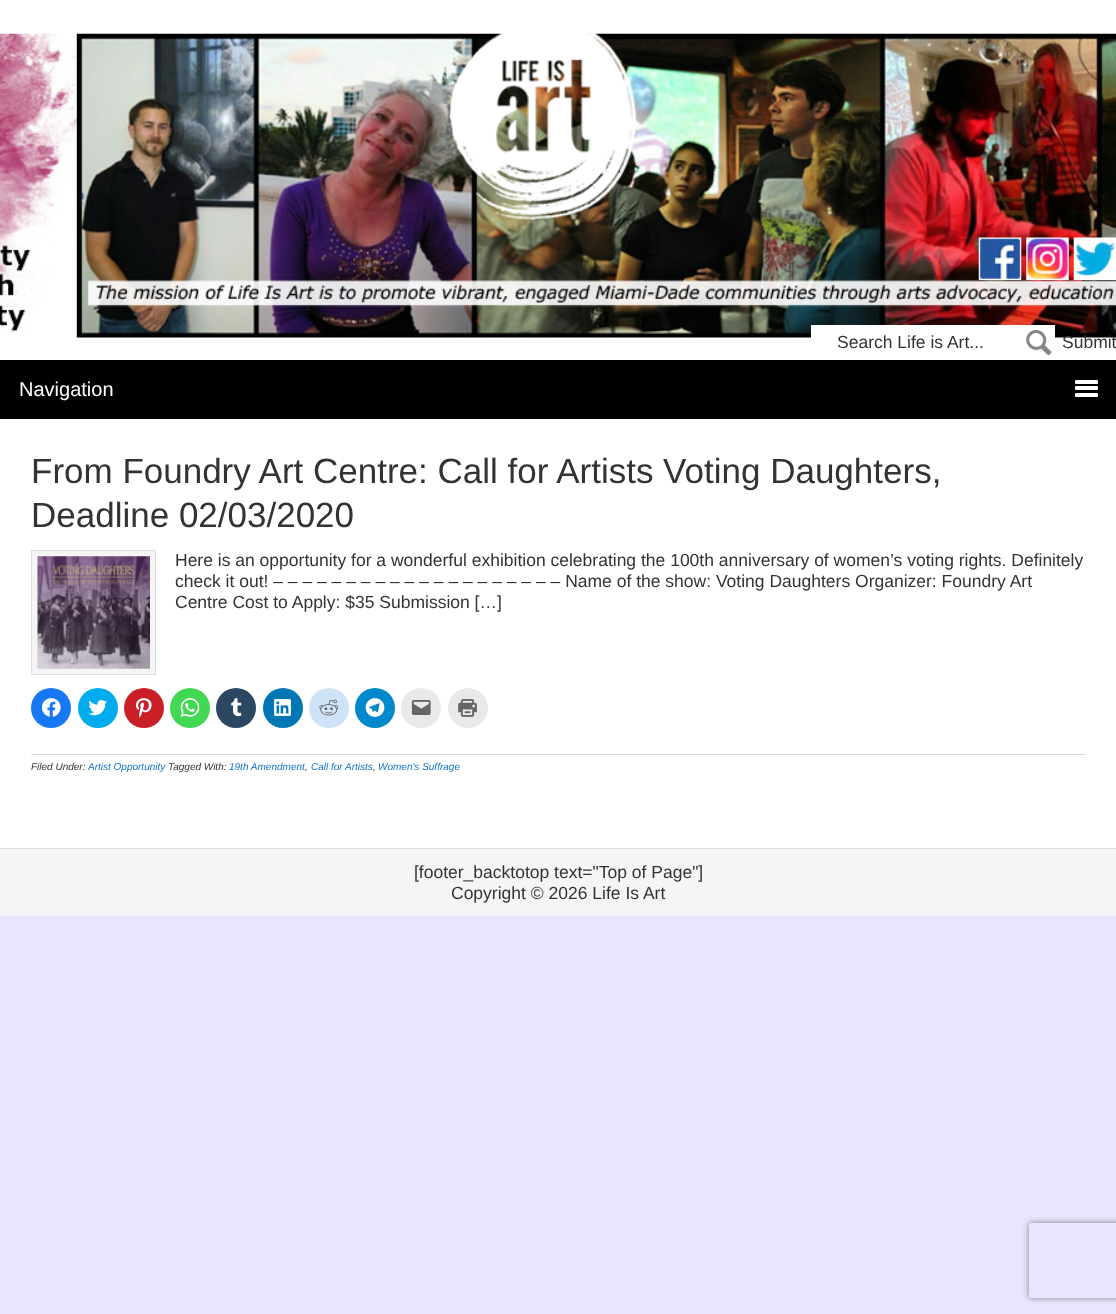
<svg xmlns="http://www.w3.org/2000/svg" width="1116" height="1314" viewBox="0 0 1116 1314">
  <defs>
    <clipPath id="clip1"><path d="M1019 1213H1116V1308H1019ZM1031.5 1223H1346.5C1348 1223 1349 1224 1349 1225.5V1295.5C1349 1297 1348 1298 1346.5 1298H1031.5C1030 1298 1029 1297 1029 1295.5V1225.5C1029 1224 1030 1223 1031.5 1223Z" clip-rule="evenodd"/></clipPath>
  </defs>
  <rect width="100%" height="100%" fill="#e8e6ff"/>
  <path d="M0 0h1116v848H0z" fill="#fff"/>
  <image x="0" y="33" width="1116" height="305" href="img/1.png"/>
  <image x="448" y="33" width="189" height="187" href="img/2.png"/>
  <image x="978" y="237" width="44" height="43" href="img/3.png"/>
  <image x="1026" y="237" width="43" height="43" href="img/4.png"/>
  <image x="1073" y="237" width="43" height="43" href="img/5.png"/>
  <path d="M811 325h244v13H811z" fill="#fff"/>
  <image x="1026" y="330" width="26" height="25" href="img/6.png"/>
  <path d="M0 360h1116v59H0z" fill="#000"/>
  <rect x="1075" y="380" width="23" height="4" rx="1" fill="#fff"/>
  <rect x="1075" y="386" width="23" height="4" rx="1" fill="#fff"/>
  <rect x="1075" y="393" width="23" height="4" rx="1" fill="#fff"/>
  <path d="M31.5 550.5h124v124H31.5z" fill="#f5f5f5" stroke="#ddd"/>
  <image x="37" y="556" width="113" height="113" href="img/7.png"/>
  <circle cx="51" cy="708" r="20" fill="#1877f2"/>
  <image x="41" y="698" width="20" height="19" href="img/8.png"/>
  <circle cx="98" cy="708" r="20" fill="#00acee"/>
  <image x="88" y="700" width="19" height="16" href="img/9.png"/>
  <circle cx="144" cy="708" r="20" fill="#ca1f27"/>
  <image x="135" y="698" width="17" height="20" href="img/10.png"/>
  <circle cx="190" cy="708" r="20" fill="#43d854"/>
  <image x="180" y="698" width="20" height="19" href="img/11.png"/>
  <circle cx="236" cy="708" r="20" fill="#2c4762"/>
  <image x="231" y="698" width="11" height="19" href="img/12.png"/>
  <circle cx="283" cy="708" r="20" fill="#0077b5"/>
  <image x="274" y="699" width="17" height="17" href="img/13.png"/>
  <circle cx="329" cy="708" r="20" fill="#cee3f8"/>
  <image x="319" y="699" width="20" height="17" href="img/14.png"/>
  <circle cx="375" cy="708" r="20" fill="#08c"/>
  <image x="365" y="698" width="20" height="19" href="img/15.png"/>
  <circle cx="421" cy="708" r="20" fill="#e9e9e9"/>
  <image x="411" y="700" width="20" height="15" href="img/16.png"/>
  <circle cx="468" cy="708" r="20" fill="#e9e9e9"/>
  <image x="458" y="699" width="19" height="18" href="img/17.png"/>
  <path d="M31 754h1054v1H31z" fill="#ddd"/>
  <path d="M0 849h1116v67H0z" fill="#f5f5f5"/>
  <path d="M0 848h1116v1H0z" fill="#ddd"/>
  <g clip-path="url(#clip1)">
    <rect x="1029" y="1223" width="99" height="75" rx="2.5" fill="#808080" filter="blur(3px)"/>
  </g>
  <g font-family="Liberation Sans" font-size="17.5" fill="#333">
    <text x="837" y="348">Search Life is Art...</text>
    <text x="1062" y="348">Submit</text>
  </g>
  <text x="19" y="396" font-family="Liberation Sans" font-size="20" fill="#fff">Navigation</text>
  <g font-family="Liberation Sans" font-size="35" fill="#333">
    <text x="31" y="483">From Foundry Art Centre: Call for Artists Voting Daughters,</text>
    <text x="31" y="527">Deadline 02/03/2020</text>
  </g>
  <g font-family="Liberation Sans" font-size="17.5" fill="#333">
    <text x="175" y="566">Here is an opportunity for a wonderful exhibition celebrating the 100th anniversary of women’s voting rights. Definitely</text>
    <text x="175" y="587">check it out! – – – – – – – – – – – – – – – – – – – – Name of the show: Voting Daughters Organizer: Foundry Art</text>
    <text x="175" y="608">Centre Cost to Apply: $35 Submission […]</text>
  </g>
  <text x="31" y="770" font-family="Liberation Sans" font-size="10" font-style="italic" fill="#333">Filed Under:</text>
  <text x="88" y="770" font-family="Liberation Sans" font-size="10" font-style="italic" fill="#0d72c7">Artist Opportunity</text>
  <text x="168" y="770" font-family="Liberation Sans" font-size="10" font-style="italic" fill="#333">Tagged With:</text>
  <g font-family="Liberation Sans" font-size="10" font-style="italic" fill="#0d72c7">
    <text x="229" y="770">19th Amendment</text>
    <text x="311" y="770">Call for Artists</text>
    <text x="378" y="770">Women's Suffrage</text>
  </g>
  <g font-family="Liberation Sans" font-size="10" font-style="italic" fill="#333">
    <text x="305" y="770">,</text>
    <text x="373" y="770">,</text>
  </g>
  <g font-family="Liberation Sans" font-size="17.5" fill="#333">
    <text x="414" y="878">[footer_backtotop text="Top of Page"]</text>
    <text x="451" y="899">Copyright © 2026 Life Is Art</text>
  </g>
</svg>
